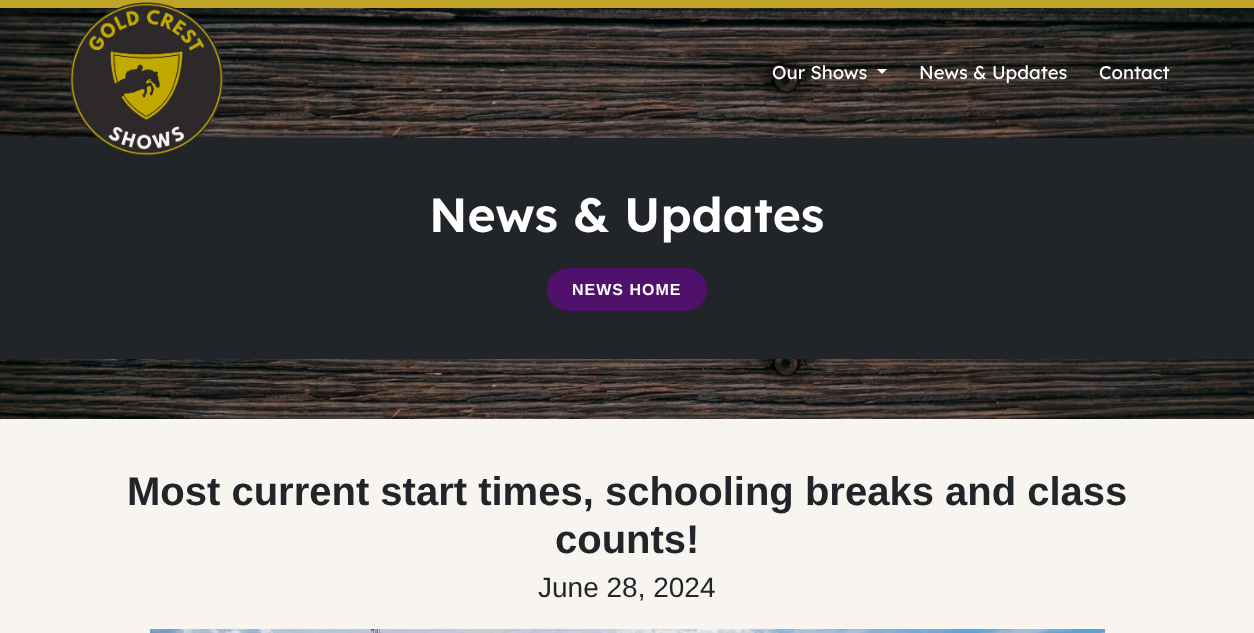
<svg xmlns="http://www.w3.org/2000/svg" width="1254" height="633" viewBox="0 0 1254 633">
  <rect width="100%" height="100%" fill="#f8f5f0"/>
  <image x="0" y="8" width="1254" height="130" href="img/1.png"/>
  <path d="M0 0h1254v8H0z" fill="#bfa427"/>
  <path d="M0 138h1254v221H0z" fill="#212529"/>
  <image x="70" y="2" width="154" height="154" href="img/2.png"/>
  <path d="M877 69H887L882 74Z" fill="#fff"/>
  <rect x="547" y="268" width="160" height="43" rx="21.5" fill="#50116c"/>
  <image x="0" y="359" width="1254" height="60" href="img/3.png"/>
  <image x="150" y="629" width="955" height="4" href="img/4.png"/>
  <g font-family="Lexend" font-size="18.5" fill="#fff">
    <text x="772" y="79">Our Shows</text>
    <text x="919" y="79">News &amp; Updates</text>
    <text x="1099" y="79">Contact</text>
  </g>
  <text x="429" y="232" font-family="Lexend" font-size="48" font-weight="600" fill="#fff">News &amp; Updates</text>
  <text x="572" y="295" font-family="Liberation Sans" font-size="16" font-weight="bold" letter-spacing="1" fill="#fff">NEWS HOME</text>
  <g font-family="Liberation Sans" font-size="40" font-weight="bold" fill="#212529">
    <text x="127" y="505">Most current start times, schooling breaks and class</text>
    <text x="555" y="553">counts!</text>
  </g>
  <text x="538" y="597" font-family="Liberation Sans" font-size="28" fill="#212529">June 28, 2024</text>
</svg>
